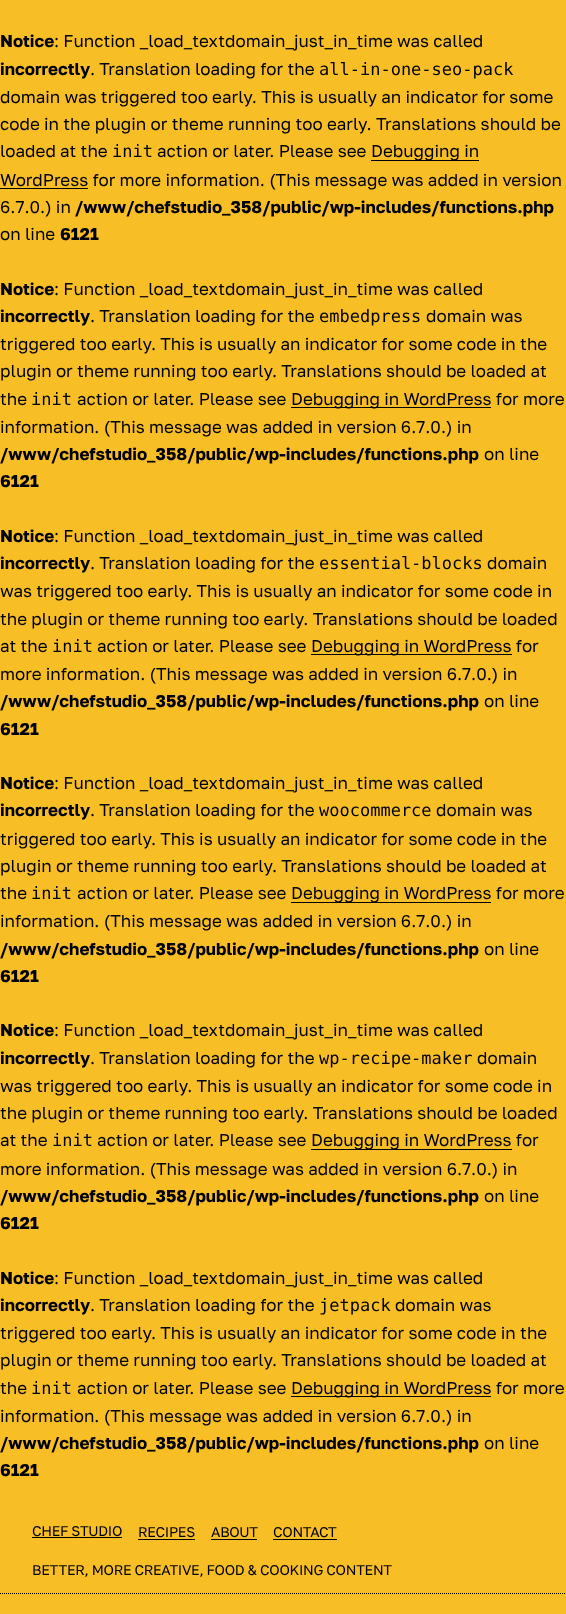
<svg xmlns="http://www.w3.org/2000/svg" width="566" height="1614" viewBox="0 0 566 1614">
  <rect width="100%" height="100%" fill="#f7be26"/>
  <path d="M371 160h108v1H371z" fill="#00000a"/>
  <path d="M0 188h88v1H0z" fill="#00000a"/>
  <path d="M291 407h200v1H291z" fill="#00000a"/>
  <path d="M311 654h201v1H311z" fill="#00000a"/>
  <path d="M291 902h200v1H291z" fill="#00000a"/>
  <path d="M311 1149h201v1H311z" fill="#00000a"/>
  <path d="M291 1396h200v1H291z" fill="#00000a"/>
  <path d="M0 1593.5H566" fill="none" stroke="#00000a" stroke-dasharray="1 1"/>
  <path d="M32 1537h90v1H32z" fill="#00000a"/>
  <path d="M138 1539h57v1H138z" fill="#00000a"/>
  <path d="M211 1539h46v1H211z" fill="#00000a"/>
  <path d="M273 1539h64v1H273z" fill="#00000a"/>
  <text x="0" y="47" font-family="Golos Text" font-size="17" font-weight="bold" fill="#00000a">Notice</text>
  <text x="54" y="47" font-family="Golos Text" font-size="17" fill="#00000a">: Function _load_textdomain_just_in_time was called</text>
  <text x="0" y="75" font-family="Golos Text" font-size="17" font-weight="bold" fill="#00000a">incorrectly</text>
  <text x="90" y="75" font-family="Golos Text" font-size="17" fill="#00000a">. Translation loading for the</text>
  <text x="319" y="75" font-family="DejaVu Sans Mono" font-size="17" fill="#00000a">all-in-one-seo-pack</text>
  <g font-family="Golos Text" font-size="17" fill="#00000a">
    <text x="0" y="103">domain was triggered too early. This is usually an indicator for some</text>
    <text x="0" y="130">code in the plugin or theme running too early. Translations should be</text>
    <text x="0" y="157">loaded at the</text>
  </g>
  <text x="112" y="157" font-family="DejaVu Sans Mono" font-size="17" fill="#00000a">init</text>
  <g font-family="Golos Text" font-size="17" fill="#00000a">
    <text x="157" y="157">action or later. Please see</text>
    <text x="371" y="157">Debugging in</text>
    <text x="0" y="186">WordPress for more information. (This message was added in version</text>
    <text x="0" y="213">6.7.0.) in</text>
  </g>
  <text x="75" y="213" font-family="Golos Text" font-size="17" font-weight="bold" fill="#00000a">/www/chefstudio_358/public/wp-includes/functions.php</text>
  <text x="0" y="240" font-family="Golos Text" font-size="17" fill="#00000a">on line</text>
  <g font-family="Golos Text" font-size="17" font-weight="bold" fill="#00000a">
    <text x="60" y="240">6121</text>
    <text x="0" y="295">Notice</text>
  </g>
  <text x="54" y="295" font-family="Golos Text" font-size="17" fill="#00000a">: Function _load_textdomain_just_in_time was called</text>
  <text x="0" y="322" font-family="Golos Text" font-size="17" font-weight="bold" fill="#00000a">incorrectly</text>
  <text x="90" y="322" font-family="Golos Text" font-size="17" fill="#00000a">. Translation loading for the</text>
  <text x="319" y="322" font-family="DejaVu Sans Mono" font-size="17" fill="#00000a">embedpress</text>
  <g font-family="Golos Text" font-size="17" fill="#00000a">
    <text x="426" y="322">domain was</text>
    <text x="0" y="350">triggered too early. This is usually an indicator for some code in the</text>
    <text x="0" y="377">plugin or theme running too early. Translations should be loaded at</text>
    <text x="0" y="405">the</text>
  </g>
  <text x="31" y="405" font-family="DejaVu Sans Mono" font-size="17" fill="#00000a">init</text>
  <g font-family="Golos Text" font-size="17" fill="#00000a">
    <text x="77" y="405">action or later. Please see</text>
    <text x="291" y="405">Debugging in WordPress for more</text>
    <text x="0" y="433">information. (This message was added in version 6.7.0.) in</text>
  </g>
  <text x="0" y="460" font-family="Golos Text" font-size="17" font-weight="bold" fill="#00000a">/www/chefstudio_358/public/wp-includes/functions.php</text>
  <text x="484" y="460" font-family="Golos Text" font-size="17" fill="#00000a">on line</text>
  <g font-family="Golos Text" font-size="17" font-weight="bold" fill="#00000a">
    <text x="0" y="487">6121</text>
    <text x="0" y="542">Notice</text>
  </g>
  <text x="54" y="542" font-family="Golos Text" font-size="17" fill="#00000a">: Function _load_textdomain_just_in_time was called</text>
  <text x="0" y="569" font-family="Golos Text" font-size="17" font-weight="bold" fill="#00000a">incorrectly</text>
  <text x="90" y="569" font-family="Golos Text" font-size="17" fill="#00000a">. Translation loading for the</text>
  <text x="319" y="569" font-family="DejaVu Sans Mono" font-size="17" fill="#00000a">essential-blocks</text>
  <g font-family="Golos Text" font-size="17" fill="#00000a">
    <text x="487" y="569">domain</text>
    <text x="0" y="597">was triggered too early. This is usually an indicator for some code in</text>
    <text x="0" y="625">the plugin or theme running too early. Translations should be loaded</text>
    <text x="0" y="652">at the</text>
  </g>
  <text x="52" y="652" font-family="DejaVu Sans Mono" font-size="17" fill="#00000a">init</text>
  <g font-family="Golos Text" font-size="17" fill="#00000a">
    <text x="97" y="652">action or later. Please see</text>
    <text x="311" y="652">Debugging in WordPress for</text>
    <text x="0" y="680">more information. (This message was added in version 6.7.0.) in</text>
  </g>
  <text x="0" y="707" font-family="Golos Text" font-size="17" font-weight="bold" fill="#00000a">/www/chefstudio_358/public/wp-includes/functions.php</text>
  <text x="484" y="707" font-family="Golos Text" font-size="17" fill="#00000a">on line</text>
  <g font-family="Golos Text" font-size="17" font-weight="bold" fill="#00000a">
    <text x="0" y="735">6121</text>
    <text x="0" y="789">Notice</text>
  </g>
  <text x="54" y="789" font-family="Golos Text" font-size="17" fill="#00000a">: Function _load_textdomain_just_in_time was called</text>
  <text x="0" y="816" font-family="Golos Text" font-size="17" font-weight="bold" fill="#00000a">incorrectly</text>
  <text x="90" y="816" font-family="Golos Text" font-size="17" fill="#00000a">. Translation loading for the</text>
  <text x="319" y="816" font-family="DejaVu Sans Mono" font-size="17" fill="#00000a">woocommerce</text>
  <g font-family="Golos Text" font-size="17" fill="#00000a">
    <text x="436" y="816">domain was</text>
    <text x="0" y="845">triggered too early. This is usually an indicator for some code in the</text>
    <text x="0" y="872">plugin or theme running too early. Translations should be loaded at</text>
    <text x="0" y="899">the</text>
  </g>
  <text x="31" y="899" font-family="DejaVu Sans Mono" font-size="17" fill="#00000a">init</text>
  <g font-family="Golos Text" font-size="17" fill="#00000a">
    <text x="77" y="899">action or later. Please see</text>
    <text x="291" y="899">Debugging in WordPress for more</text>
    <text x="0" y="927">information. (This message was added in version 6.7.0.) in</text>
  </g>
  <text x="0" y="955" font-family="Golos Text" font-size="17" font-weight="bold" fill="#00000a">/www/chefstudio_358/public/wp-includes/functions.php</text>
  <text x="484" y="955" font-family="Golos Text" font-size="17" fill="#00000a">on line</text>
  <g font-family="Golos Text" font-size="17" font-weight="bold" fill="#00000a">
    <text x="0" y="982">6121</text>
    <text x="0" y="1036">Notice</text>
  </g>
  <text x="54" y="1036" font-family="Golos Text" font-size="17" fill="#00000a">: Function _load_textdomain_just_in_time was called</text>
  <text x="0" y="1064" font-family="Golos Text" font-size="17" font-weight="bold" fill="#00000a">incorrectly</text>
  <text x="90" y="1064" font-family="Golos Text" font-size="17" fill="#00000a">. Translation loading for the</text>
  <text x="319" y="1064" font-family="DejaVu Sans Mono" font-size="17" fill="#00000a">wp-recipe-maker</text>
  <g font-family="Golos Text" font-size="17" fill="#00000a">
    <text x="477" y="1064">domain</text>
    <text x="0" y="1092">was triggered too early. This is usually an indicator for some code in</text>
    <text x="0" y="1119">the plugin or theme running too early. Translations should be loaded</text>
    <text x="0" y="1146">at the</text>
  </g>
  <text x="52" y="1146" font-family="DejaVu Sans Mono" font-size="17" fill="#00000a">init</text>
  <g font-family="Golos Text" font-size="17" fill="#00000a">
    <text x="97" y="1146">action or later. Please see</text>
    <text x="311" y="1146">Debugging in WordPress for</text>
    <text x="0" y="1175">more information. (This message was added in version 6.7.0.) in</text>
  </g>
  <text x="0" y="1202" font-family="Golos Text" font-size="17" font-weight="bold" fill="#00000a">/www/chefstudio_358/public/wp-includes/functions.php</text>
  <text x="484" y="1202" font-family="Golos Text" font-size="17" fill="#00000a">on line</text>
  <g font-family="Golos Text" font-size="17" font-weight="bold" fill="#00000a">
    <text x="0" y="1229">6121</text>
    <text x="0" y="1284">Notice</text>
  </g>
  <text x="54" y="1284" font-family="Golos Text" font-size="17" fill="#00000a">: Function _load_textdomain_just_in_time was called</text>
  <text x="0" y="1311" font-family="Golos Text" font-size="17" font-weight="bold" fill="#00000a">incorrectly</text>
  <text x="90" y="1311" font-family="Golos Text" font-size="17" fill="#00000a">. Translation loading for the</text>
  <text x="319" y="1311" font-family="DejaVu Sans Mono" font-size="17" fill="#00000a">jetpack</text>
  <g font-family="Golos Text" font-size="17" fill="#00000a">
    <text x="395" y="1311">domain was</text>
    <text x="0" y="1339">triggered too early. This is usually an indicator for some code in the</text>
    <text x="0" y="1366">plugin or theme running too early. Translations should be loaded at</text>
    <text x="0" y="1394">the</text>
  </g>
  <text x="31" y="1394" font-family="DejaVu Sans Mono" font-size="17" fill="#00000a">init</text>
  <g font-family="Golos Text" font-size="17" fill="#00000a">
    <text x="77" y="1394">action or later. Please see</text>
    <text x="291" y="1394">Debugging in WordPress for more</text>
    <text x="0" y="1422">information. (This message was added in version 6.7.0.) in</text>
  </g>
  <text x="0" y="1449" font-family="Golos Text" font-size="17" font-weight="bold" fill="#00000a">/www/chefstudio_358/public/wp-includes/functions.php</text>
  <text x="484" y="1449" font-family="Golos Text" font-size="17" fill="#00000a">on line</text>
  <text x="0" y="1476" font-family="Golos Text" font-size="17" font-weight="bold" fill="#00000a">6121</text>
  <g font-family="Golos Text" font-size="14.1" letter-spacing="-0.3" fill="#00000a">
    <text x="32" y="1536">CHEF STUDIO</text>
    <text x="138" y="1537">RECIPES</text>
    <text x="211" y="1537">ABOUT</text>
    <text x="273" y="1537">CONTACT</text>
    <text x="32" y="1575">BETTER, MORE CREATIVE, FOOD &amp; COOKING CONTENT</text>
  </g>
</svg>
